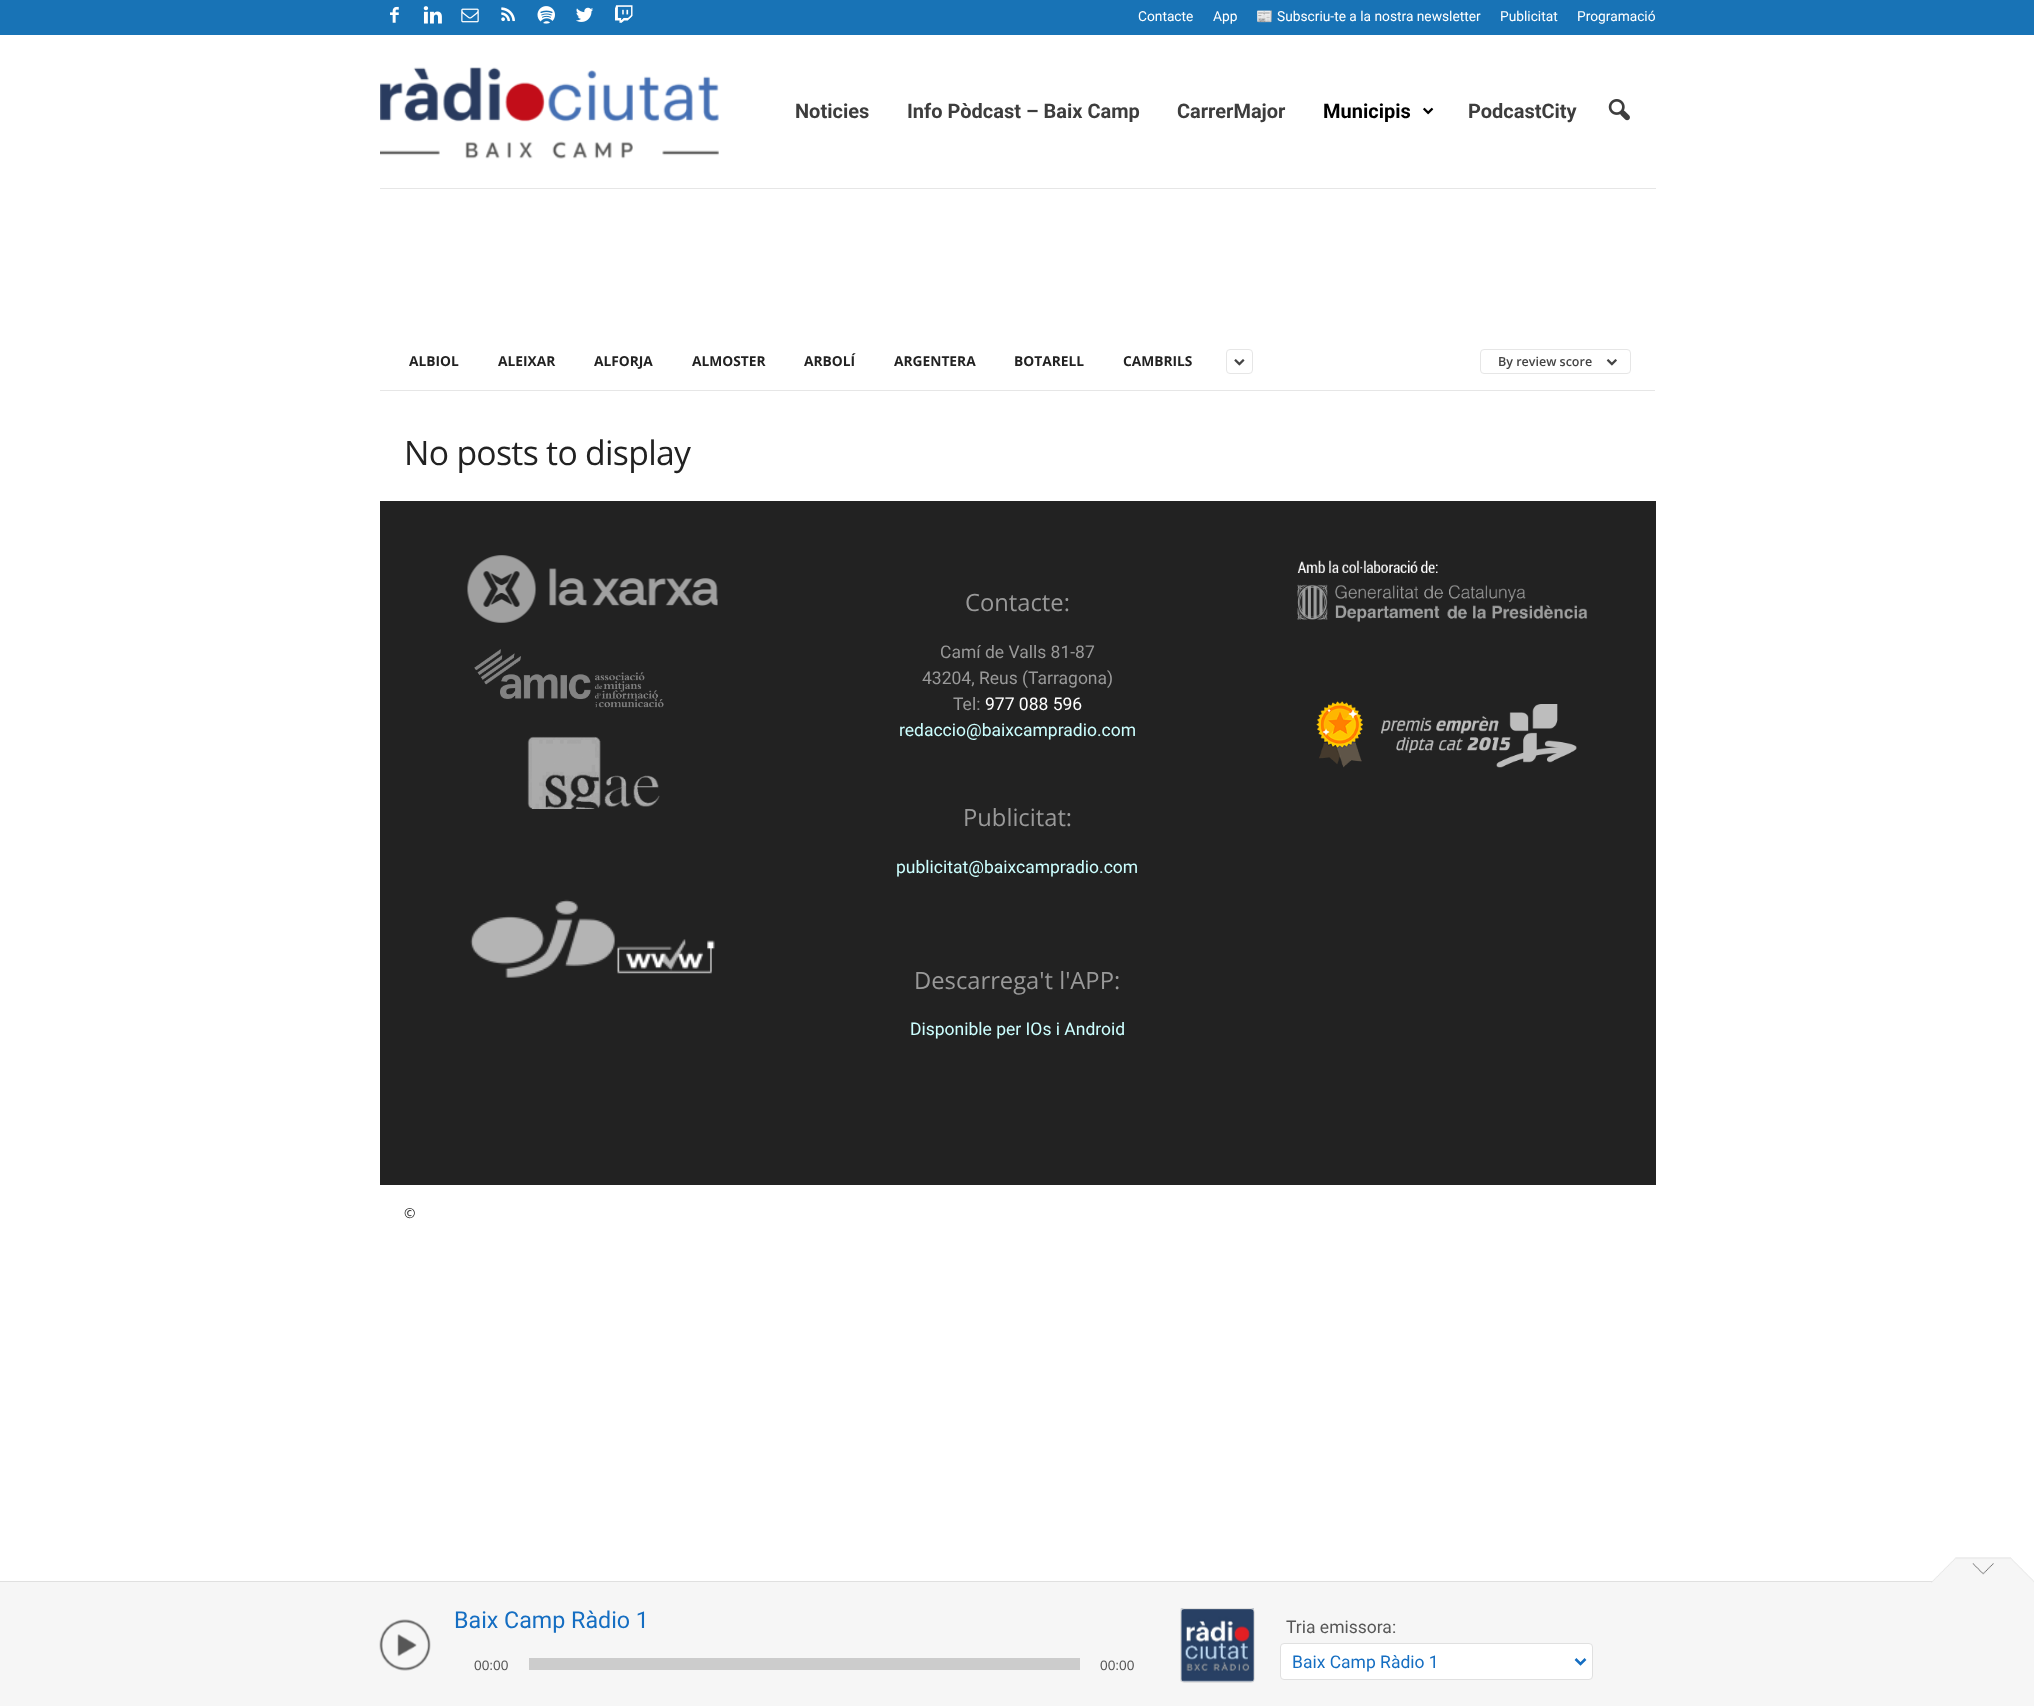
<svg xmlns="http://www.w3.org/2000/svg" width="2034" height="1706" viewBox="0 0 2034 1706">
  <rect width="100%" height="100%" fill="#fff"/>
  <path d="M0 0h2034v35H0z" fill="#1873b6"/>
  <image x="390" y="6" width="9" height="17" href="img/1.png"/>
  <image x="423" y="6" width="19" height="18" href="img/2.png"/>
  <image x="461" y="8" width="18" height="15" href="img/3.png"/>
  <image x="501" y="7" width="14" height="15" href="img/4.png"/>
  <image x="537" y="6" width="18" height="18" href="img/5.png"/>
  <image x="576" y="7" width="18" height="15" href="img/6.png"/>
  <image x="615" y="5" width="18" height="18" href="img/7.png"/>
  <path d="M380 188h1276v1H380z" fill="#e6e6e6"/>
  <image x="380" y="67" width="339" height="92" href="img/8.png"/>
  <image x="1423" y="107" width="11" height="8" href="img/9.png"/>
  <image x="1608" y="99" width="22" height="22" href="img/10.png"/>
  <path d="M380 390h1275v1H380z" fill="#e6e6e6"/>
  <rect x="1226.5" y="349.5" width="26" height="24" rx="3.5" fill="none" stroke="#e6e6e6"/>
  <image x="1234" y="359" width="11" height="7" href="img/11.png"/>
  <rect x="1480.5" y="349.5" width="150" height="24" rx="3.5" fill="none" stroke="#e6e6e6"/>
  <image x="1606" y="359" width="11" height="7" href="img/12.png"/>
  <path d="M380 501h1276v684H380z" fill="#222"/>
  <image x="467" y="555" width="251" height="68" href="img/13.png"/>
  <image x="474" y="649" width="190" height="59" href="img/14.png"/>
  <image x="527" y="736" width="133" height="73" href="img/15.png"/>
  <image x="470" y="899" width="245" height="79" href="img/16.png"/>
  <image x="1297" y="560" width="291" height="62" href="img/17.png"/>
  <image x="1316" y="701" width="261" height="67" href="img/18.png"/>
  <path d="M0 1582h2034v124H0z" fill="#f6f6f6"/>
  <path d="M0 1581h2034v1H0z" fill="#e0e0e0"/>
  <image x="1931" y="1557" width="103" height="26" href="img/19.png"/>
  <image x="379" y="1619" width="52" height="52" href="img/20.png"/>
  <rect x="1180" y="1608" width="75" height="75" rx="4" fill="#fff"/>
  <image x="1180" y="1608" width="74" height="74" href="img/21.png"/>
  <rect x="1180.5" y="1608.5" width="74" height="74" rx="3.5" fill="none" stroke="#e0e0e0"/>
  <rect x="1280.5" y="1643.5" width="312" height="36" rx="3.5" fill="#fff" stroke="#e0e0e0"/>
  <path d="M1575.5 1659L1580.5 1664L1585.5 1659" fill="none" stroke="#156ec2" stroke-width="2.5"/>
  <path d="M529 1658h551v12H529z" fill="#ccc"/>
  <g font-family="Roboto" font-size="13.75" fill="#fff">
    <text x="1138" y="21">Contacte</text>
    <text x="1213" y="21">App</text>
  </g>
  <text x="1256" y="21" font-family="Noto Color Emoji" font-size="13.75" fill="#fff">📰</text>
  <g font-family="Roboto" font-size="13.75" fill="#fff">
    <text x="1277" y="21">Subscriu-te a la nostra newsletter</text>
    <text x="1500" y="21">Publicitat</text>
    <text x="1577" y="21">Programació</text>
  </g>
  <g font-family="Roboto" font-size="20" font-weight="bold" fill="#3d3d3d">
    <text x="795" y="118">Noticies</text>
    <text x="907" y="118">Info Pòdcast – Baix Camp</text>
    <text x="1177" y="118">CarrerMajor</text>
  </g>
  <text x="1323" y="118" font-family="Roboto" font-size="20" font-weight="bold" fill="#000">Municipis</text>
  <text x="1468" y="118" font-family="Roboto" font-size="20" font-weight="bold" fill="#3d3d3d">PodcastCity</text>
  <g font-family="Open Sans" font-size="13.75" font-weight="bold" fill="#222">
    <text x="409" y="366">ALBIOL</text>
    <text x="498" y="366">ALEIXAR</text>
    <text x="594" y="366">ALFORJA</text>
    <text x="692" y="366">ALMOSTER</text>
    <text x="804" y="366">ARBOLÍ</text>
    <text x="894" y="366">ARGENTERA</text>
    <text x="1014" y="366">BOTARELL</text>
    <text x="1123" y="366">CAMBRILS</text>
  </g>
  <text x="1498" y="366" font-family="Open Sans" font-size="12.5" font-weight="600" fill="#444">By review score</text>
  <text x="404" y="465" font-family="Open Sans" font-size="33.75" letter-spacing="-0.7" fill="#222">No posts to display</text>
  <text x="965" y="611" font-family="Open Sans" font-size="23.75" fill="#999">Contacte:</text>
  <g font-family="Roboto" font-size="17.5" fill="#999">
    <text x="940" y="658">Camí de Valls 81-87</text>
    <text x="922" y="684">43204, Reus (Tarragona)</text>
    <text x="953" y="710">Tel:</text>
  </g>
  <text x="985" y="710" font-family="Roboto" font-size="17.5" fill="#fff">977 088 596</text>
  <text x="899" y="736" font-family="Roboto" font-size="17.5" fill="#cff">redaccio@baixcampradio.com</text>
  <text x="963" y="826" font-family="Open Sans" font-size="23.75" fill="#999">Publicitat:</text>
  <text x="896" y="873" font-family="Roboto" font-size="17.5" fill="#cff">publicitat@baixcampradio.com</text>
  <text x="914" y="989" font-family="Open Sans" font-size="23.75" fill="#999">Descarrega't l'APP:</text>
  <text x="910" y="1035" font-family="Roboto" font-size="17.5" fill="#cff">Disponible per IOs i Android</text>
  <text x="404" y="1218" font-family="Open Sans" font-size="13.75" fill="#222">©</text>
  <text x="454" y="1628" font-family="Roboto" font-size="23.25" fill="#156ec2">Baix Camp Ràdio 1</text>
  <text x="1286" y="1633" font-family="Roboto" font-size="17.5" fill="#575757">Tria emissora:</text>
  <text x="1292" y="1668" font-family="Roboto" font-size="17.5" fill="#156ec2">Baix Camp Ràdio 1</text>
  <g font-family="Liberation Sans" font-size="13.75" fill="#575757">
    <text x="474" y="1670">00:00</text>
    <text x="1100" y="1670">00:00</text>
  </g>
</svg>
